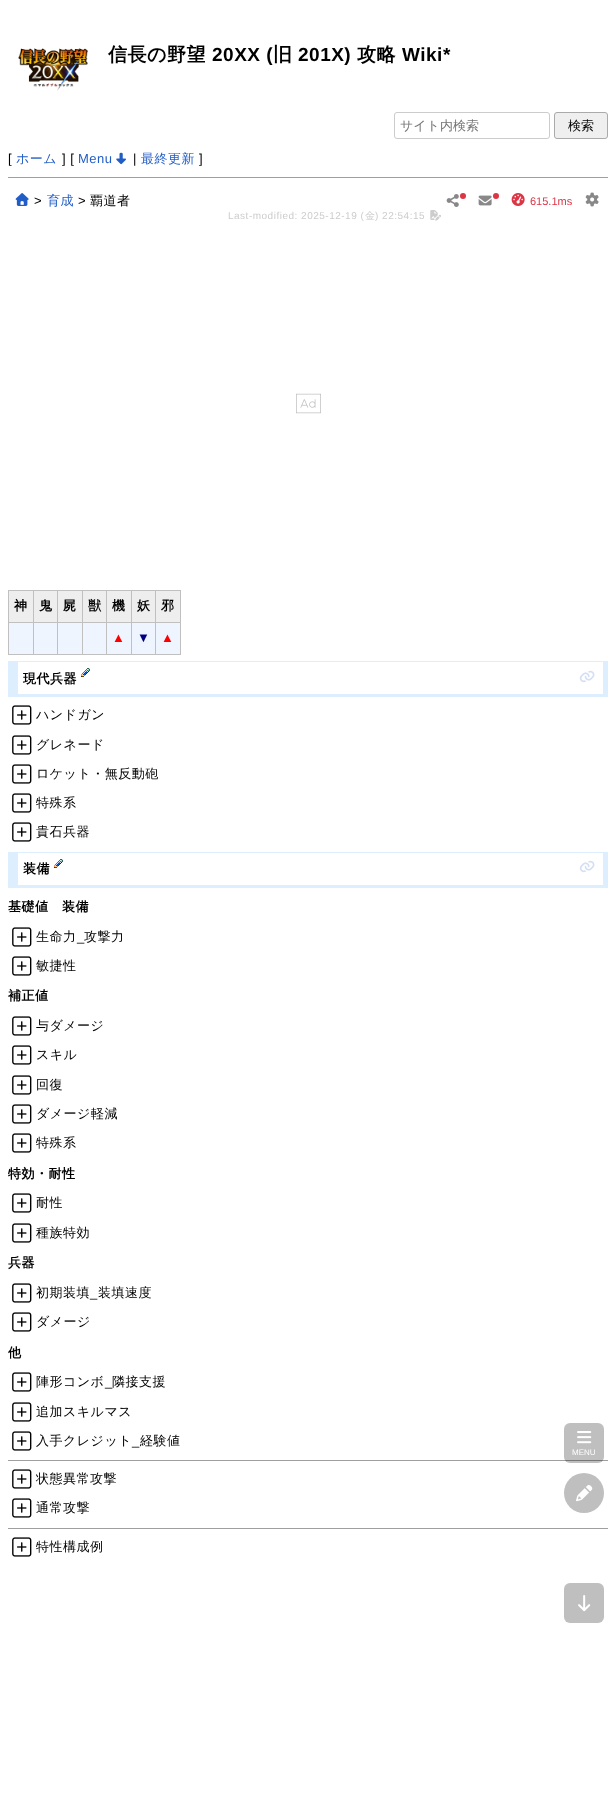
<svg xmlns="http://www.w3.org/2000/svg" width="616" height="1808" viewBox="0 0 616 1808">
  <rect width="100%" height="100%" fill="#fff"/>
  <image x="18" y="48" width="70" height="43" href="img/1.png"/>
  <rect x="394.5" y="112.5" width="155" height="26" rx="2.5" fill="none" stroke="#ccc"/>
  <rect x="554.5" y="112.5" width="53" height="26" rx="2.5" fill="#efefef" stroke="#aaa"/>
  <image x="116" y="152" width="10" height="13" href="img/2.png"/>
  <path d="M8 177h600v1H8z" fill="#9f9f9f"/>
  <path d="M8 1460h600v1H8z" fill="#9f9f9f"/>
  <rect x="564" y="1423" width="40" height="40" rx="6" fill="#00000040"/>
  <image x="577" y="1431" width="15" height="13" href="img/3.png"/>
  <circle cx="584" cy="1493" r="20" fill="#bfbfbf"/>
  <image x="576" y="1485" width="17" height="17" href="img/4.png"/>
  <rect x="564" y="1583" width="40" height="40" rx="6" fill="#bfbfbf"/>
  <image x="578" y="1595" width="13" height="17" href="img/5.png"/>
  <image x="15" y="193" width="14" height="13" href="img/6.png"/>
  <image x="446" y="194" width="13" height="13" href="img/7.png"/>
  <circle cx="463" cy="196" r="3" fill="#dc3545"/>
  <image x="478" y="195" width="14" height="11" href="img/8.png"/>
  <circle cx="496" cy="196" r="3" fill="#dc3545"/>
  <image x="511" y="193" width="14" height="13" href="img/9.png"/>
  <image x="585" y="192" width="14" height="15" href="img/10.png"/>
  <image x="430" y="210" width="11" height="11" href="img/11.png"/>
  <image x="296" y="393" width="25" height="21" href="img/12.png"/>
  <path d="M9 591h24v31H9z" fill="#eee"/>
  <path d="M155 590h26v1H155z" fill="#c0c0c0"/>
  <path d="M155 622h26v1H155z" fill="#c0c0c0"/>
  <path d="M180 622h1v33H180z" fill="#c0c0c0"/>
  <path d="M155 654h26v1H155z" fill="#c0c0c0"/>
  <path d="M155 622h1v33H155z" fill="#c0c0c0"/>
  <path d="M131 622h25v1H131z" fill="#c0c0c0"/>
  <path d="M155 590h1v33H155z" fill="#c0c0c0"/>
  <path d="M131 590h25v1H131z" fill="#c0c0c0"/>
  <path d="M131 654h25v1H131z" fill="#c0c0c0"/>
  <path d="M131 622h1v33H131z" fill="#c0c0c0"/>
  <path d="M106 622h26v1H106z" fill="#c0c0c0"/>
  <path d="M131 590h1v33H131z" fill="#c0c0c0"/>
  <path d="M106 590h26v1H106z" fill="#c0c0c0"/>
  <path d="M106 654h26v1H106z" fill="#c0c0c0"/>
  <path d="M106 622h1v33H106z" fill="#c0c0c0"/>
  <path d="M82 622h25v1H82z" fill="#c0c0c0"/>
  <path d="M106 590h1v33H106z" fill="#c0c0c0"/>
  <path d="M82 590h25v1H82z" fill="#c0c0c0"/>
  <path d="M82 654h25v1H82z" fill="#c0c0c0"/>
  <path d="M82 622h1v33H82z" fill="#c0c0c0"/>
  <path d="M57 622h26v1H57z" fill="#c0c0c0"/>
  <path d="M82 590h1v33H82z" fill="#c0c0c0"/>
  <path d="M57 590h26v1H57z" fill="#c0c0c0"/>
  <path d="M57 654h26v1H57z" fill="#c0c0c0"/>
  <path d="M57 622h1v33H57z" fill="#c0c0c0"/>
  <path d="M33 622h25v1H33z" fill="#c0c0c0"/>
  <path d="M57 590h1v33H57z" fill="#c0c0c0"/>
  <path d="M33 590h25v1H33z" fill="#c0c0c0"/>
  <path d="M33 654h25v1H33z" fill="#c0c0c0"/>
  <path d="M33 622h1v33H33z" fill="#c0c0c0"/>
  <path d="M8 622h26v1H8z" fill="#c0c0c0"/>
  <path d="M33 590h1v33H33z" fill="#c0c0c0"/>
  <path d="M8 590h26v1H8z" fill="#c0c0c0"/>
  <path d="M8 654h26v1H8z" fill="#c0c0c0"/>
  <path d="M8 622h1v33H8z" fill="#c0c0c0"/>
  <path d="M8 590h1v33H8z" fill="#c0c0c0"/>
  <path d="M34 591h23v31H34z" fill="#eee"/>
  <path d="M58 591h24v31H58z" fill="#eee"/>
  <path d="M83 591h23v31H83z" fill="#eee"/>
  <path d="M107 591h24v31H107z" fill="#eee"/>
  <path d="M132 591h23v31H132z" fill="#eee"/>
  <path d="M156 591h24v31H156z" fill="#eee"/>
  <path d="M180 590h1v33H180z" fill="#c0c0c0"/>
  <path d="M9 623h24v31H9z" fill="#eef5ff"/>
  <path d="M34 623h23v31H34z" fill="#eef5ff"/>
  <path d="M58 623h24v31H58z" fill="#eef5ff"/>
  <path d="M83 623h23v31H83z" fill="#eef5ff"/>
  <path d="M107 623h24v31H107z" fill="#eef5ff"/>
  <path d="M132 623h23v31H132z" fill="#eef5ff"/>
  <path d="M156 623h24v31H156z" fill="#eef5ff"/>
  <path d="M18 661h590v1H18z" fill="#def"/>
  <path d="M603 661h5v36H603z" fill="#def"/>
  <path d="M18 694h590v3H18z" fill="#def"/>
  <path d="M8 661h10v36H8z" fill="#def"/>
  <image x="81" y="668" width="9" height="9" href="img/13.png"/>
  <image x="579" y="670" width="16" height="13" href="img/14.png"/>
  <image x="12" y="705" width="20" height="20" href="img/15.png"/>
  <image x="12" y="735" width="20" height="20" href="img/15.png"/>
  <image x="12" y="764" width="20" height="20" href="img/15.png"/>
  <image x="12" y="793" width="20" height="20" href="img/15.png"/>
  <image x="12" y="822" width="20" height="20" href="img/15.png"/>
  <path d="M18 852h590v1H18z" fill="#def"/>
  <path d="M603 852h5v36H603z" fill="#def"/>
  <path d="M18 885h590v3H18z" fill="#def"/>
  <path d="M8 852h10v36H8z" fill="#def"/>
  <image x="54" y="859" width="9" height="9" href="img/13.png"/>
  <image x="579" y="860" width="16" height="13" href="img/14.png"/>
  <image x="12" y="927" width="20" height="20" href="img/15.png"/>
  <image x="12" y="956" width="20" height="20" href="img/15.png"/>
  <image x="12" y="1016" width="20" height="20" href="img/15.png"/>
  <image x="12" y="1045" width="20" height="20" href="img/15.png"/>
  <image x="12" y="1075" width="20" height="20" href="img/15.png"/>
  <image x="12" y="1104" width="20" height="20" href="img/15.png"/>
  <image x="12" y="1133" width="20" height="20" href="img/15.png"/>
  <image x="12" y="1193" width="20" height="20" href="img/15.png"/>
  <image x="12" y="1223" width="20" height="20" href="img/15.png"/>
  <image x="12" y="1283" width="20" height="20" href="img/15.png"/>
  <image x="12" y="1312" width="20" height="20" href="img/15.png"/>
  <image x="12" y="1372" width="20" height="20" href="img/15.png"/>
  <image x="12" y="1402" width="20" height="20" href="img/15.png"/>
  <image x="12" y="1431" width="20" height="20" href="img/15.png"/>
  <image x="12" y="1469" width="20" height="20" href="img/15.png"/>
  <image x="12" y="1498" width="20" height="20" href="img/15.png"/>
  <path d="M8 1528h600v1H8z" fill="#9f9f9f"/>
  <image x="12" y="1537" width="20" height="20" href="img/15.png"/>
  <text x="108" y="61" font-family="WenQuanYi Zen Hei" font-size="19" font-weight="bold" letter-spacing="0.5" fill="#000">信長の野望</text>
  <text x="212" y="61" font-family="Liberation Sans" font-size="19" font-weight="bold" letter-spacing="0.5" fill="#000">20XX (</text>
  <text x="273" y="61" font-family="WenQuanYi Zen Hei" font-size="19" font-weight="bold" letter-spacing="0.5" fill="#000">旧</text>
  <text x="298" y="61" font-family="Liberation Sans" font-size="19" font-weight="bold" letter-spacing="0.5" fill="#000">201X)</text>
  <text x="357" y="61" font-family="WenQuanYi Zen Hei" font-size="19" font-weight="bold" letter-spacing="0.5" fill="#000">攻略</text>
  <text x="402" y="61" font-family="Liberation Sans" font-size="19" font-weight="bold" letter-spacing="0.5" fill="#000">Wiki*</text>
  <text x="400" y="130" font-family="WenQuanYi Zen Hei" font-size="13" font-weight="500" fill="#757575">サイト内検索</text>
  <text x="568" y="130" font-family="WenQuanYi Zen Hei" font-size="13" font-weight="500" fill="#000">検索</text>
  <text x="8" y="163" font-family="Liberation Sans" font-size="13" letter-spacing="0.5" fill="#000">[</text>
  <text x="16" y="163" font-family="WenQuanYi Zen Hei" font-size="13" font-weight="500" letter-spacing="0.5" fill="#215dc6">ホーム</text>
  <text x="62" y="163" font-family="Liberation Sans" font-size="13" letter-spacing="0.5" fill="#000">] [</text>
  <text x="78" y="163" font-family="Liberation Sans" font-size="13" letter-spacing="0.5" fill="#215dc6">Menu</text>
  <text x="133" y="163" font-family="Liberation Sans" font-size="13" letter-spacing="0.5" fill="#000">|</text>
  <text x="141" y="163" font-family="WenQuanYi Zen Hei" font-size="13" font-weight="500" letter-spacing="0.5" fill="#215dc6">最終更新</text>
  <text x="199" y="163" font-family="Liberation Sans" font-size="13" letter-spacing="0.5" fill="#000">]</text>
  <text x="572" y="1455" font-family="Liberation Sans" font-size="8" fill="#fff">MENU</text>
  <text x="34" y="205" font-family="Liberation Sans" font-size="13" letter-spacing="0.5" fill="#000">&gt;</text>
  <text x="47" y="205" font-family="WenQuanYi Zen Hei" font-size="13" font-weight="500" letter-spacing="0.5" fill="#215dc6">育成</text>
  <text x="78" y="205" font-family="Liberation Sans" font-size="13" letter-spacing="0.5" fill="#000">&gt;</text>
  <text x="90" y="205" font-family="WenQuanYi Zen Hei" font-size="13" font-weight="500" letter-spacing="0.5" fill="#000">覇道者</text>
  <text x="530" y="205" font-family="Liberation Sans" font-size="11" fill="#dc3545">615.1ms</text>
  <text x="228" y="219" font-family="Liberation Sans" font-size="10" letter-spacing="0.5" fill="#ccc">Last-modified: 2025-12-19 (</text>
  <text x="365" y="219" font-family="WenQuanYi Zen Hei" font-size="10" font-weight="500" letter-spacing="0.5" fill="#ccc">金</text>
  <text x="375" y="219" font-family="Liberation Sans" font-size="10" letter-spacing="0.5" fill="#ccc">) 22:54:15</text>
  <g font-family="WenQuanYi Zen Hei" font-size="13" font-weight="bold" letter-spacing="0.5" fill="#000">
    <text x="14" y="610">神</text>
    <text x="39" y="610">鬼</text>
    <text x="63" y="610">屍</text>
    <text x="88" y="610">獣</text>
    <text x="112" y="610">機</text>
    <text x="137" y="610">妖</text>
    <text x="161" y="610">邪</text>
  </g>
  <text x="112" y="642" font-family="Liberation Sans" font-size="13" letter-spacing="0.5" fill="#f00">▲</text>
  <text x="137" y="642" font-family="Liberation Sans" font-size="13" letter-spacing="0.5" fill="#000080">▼</text>
  <text x="161" y="642" font-family="Liberation Sans" font-size="13" letter-spacing="0.5" fill="#f00">▲</text>
  <text x="23" y="683" font-family="WenQuanYi Zen Hei" font-size="13" font-weight="bold" letter-spacing="0.5" fill="#000">現代兵器</text>
  <g font-family="WenQuanYi Zen Hei" font-size="13" font-weight="500" letter-spacing="0.5" fill="#000">
    <text x="36" y="719">ハンドガン</text>
    <text x="36" y="749">グレネード</text>
    <text x="36" y="778">ロケット・無反動砲</text>
    <text x="36" y="807">特殊系</text>
    <text x="36" y="836">貴石兵器</text>
  </g>
  <g font-family="WenQuanYi Zen Hei" font-size="13" font-weight="bold" letter-spacing="0.5" fill="#000">
    <text x="23" y="873">装備</text>
    <text x="8" y="911">基礎値　装備</text>
  </g>
  <text x="36" y="941" font-family="WenQuanYi Zen Hei" font-size="13" font-weight="500" letter-spacing="0.5" fill="#000">生命力</text>
  <text x="77" y="941" font-family="Liberation Sans" font-size="13" letter-spacing="0.5" fill="#000">_</text>
  <g font-family="WenQuanYi Zen Hei" font-size="13" font-weight="500" letter-spacing="0.5" fill="#000">
    <text x="84" y="941">攻撃力</text>
    <text x="36" y="970">敏捷性</text>
  </g>
  <text x="8" y="1000" font-family="WenQuanYi Zen Hei" font-size="13" font-weight="bold" letter-spacing="0.5" fill="#000">補正値</text>
  <g font-family="WenQuanYi Zen Hei" font-size="13" font-weight="500" letter-spacing="0.5" fill="#000">
    <text x="36" y="1030">与ダメージ</text>
    <text x="36" y="1059">スキル</text>
    <text x="36" y="1089">回復</text>
    <text x="36" y="1118">ダメージ軽減</text>
    <text x="36" y="1147">特殊系</text>
  </g>
  <text x="8" y="1178" font-family="WenQuanYi Zen Hei" font-size="13" font-weight="bold" letter-spacing="0.5" fill="#000">特効・耐性</text>
  <g font-family="WenQuanYi Zen Hei" font-size="13" font-weight="500" letter-spacing="0.5" fill="#000">
    <text x="36" y="1207">耐性</text>
    <text x="36" y="1237">種族特効</text>
  </g>
  <text x="8" y="1267" font-family="WenQuanYi Zen Hei" font-size="13" font-weight="bold" letter-spacing="0.5" fill="#000">兵器</text>
  <text x="36" y="1297" font-family="WenQuanYi Zen Hei" font-size="13" font-weight="500" letter-spacing="0.5" fill="#000">初期装填</text>
  <text x="90" y="1297" font-family="Liberation Sans" font-size="13" letter-spacing="0.5" fill="#000">_</text>
  <g font-family="WenQuanYi Zen Hei" font-size="13" font-weight="500" letter-spacing="0.5" fill="#000">
    <text x="98" y="1297">装填速度</text>
    <text x="36" y="1326">ダメージ</text>
  </g>
  <text x="8" y="1357" font-family="WenQuanYi Zen Hei" font-size="13" font-weight="bold" letter-spacing="0.5" fill="#000">他</text>
  <text x="36" y="1386" font-family="WenQuanYi Zen Hei" font-size="13" font-weight="500" letter-spacing="0.5" fill="#000">陣形コンボ</text>
  <text x="105" y="1386" font-family="Liberation Sans" font-size="13" letter-spacing="0.5" fill="#000">_</text>
  <g font-family="WenQuanYi Zen Hei" font-size="13" font-weight="500" letter-spacing="0.5" fill="#000">
    <text x="112" y="1386">隣接支援</text>
    <text x="36" y="1416">追加スキルマス</text>
    <text x="36" y="1445">入手クレジット</text>
  </g>
  <text x="132" y="1445" font-family="Liberation Sans" font-size="13" letter-spacing="0.5" fill="#000">_</text>
  <g font-family="WenQuanYi Zen Hei" font-size="13" font-weight="500" letter-spacing="0.5" fill="#000">
    <text x="140" y="1445">経験値</text>
    <text x="36" y="1483">状態異常攻撃</text>
    <text x="36" y="1512">通常攻撃</text>
    <text x="36" y="1551">特性構成例</text>
  </g>
</svg>
